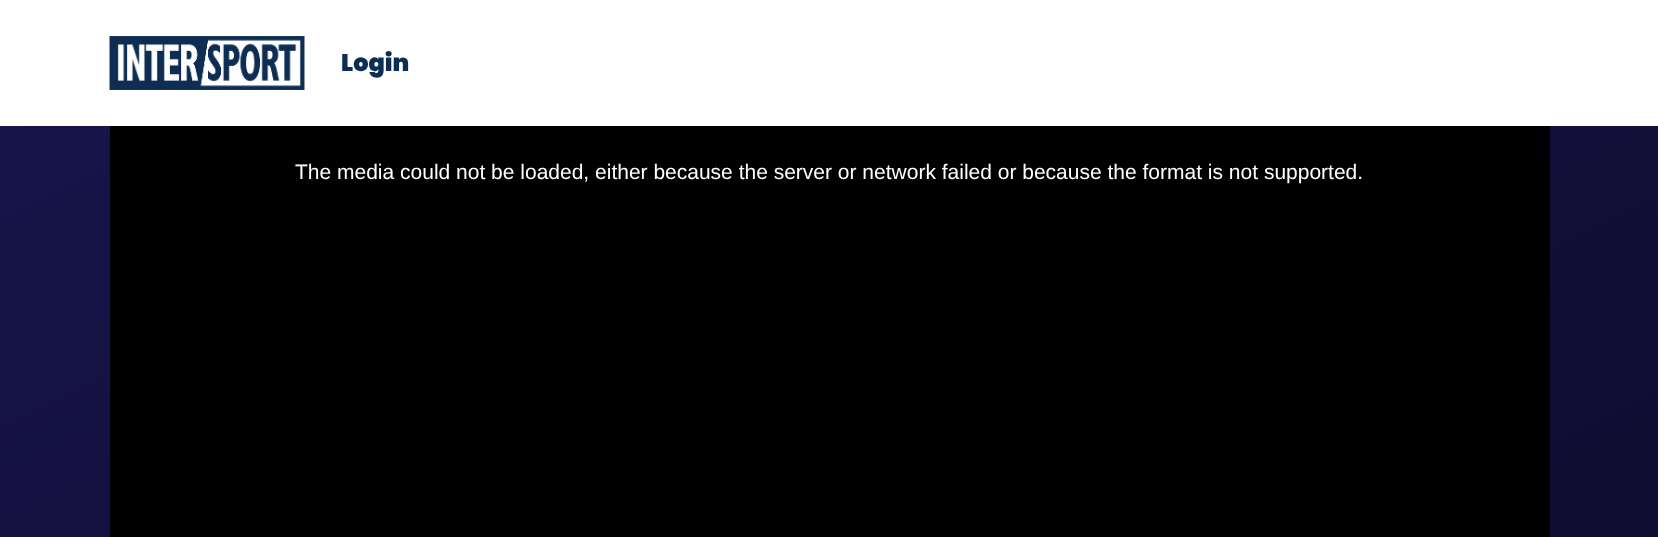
<svg xmlns="http://www.w3.org/2000/svg" width="1658" height="537" viewBox="0 0 1658 537">
  <defs>
    <linearGradient id="g1" gradientUnits="userSpaceOnUse" x1="495" y1="-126" x2="1164" y2="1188"><stop offset="0" stop-color="#17144a"/><stop offset="1" stop-color="#0c0a28"/></linearGradient>
  </defs>
  <rect width="100%" height="100%" fill="#fff"/>
  <image x="109" y="36" width="196" height="54" href="img/1.png"/>
  <path d="M0 126h1658v411H0z" fill="url(#g1)"/>
  <path d="M110 126h1440v411H110z" fill="#000"/>
  <text x="341" y="71" font-family="Poppins" font-size="24" font-weight="900" fill="#0e2d52">Login</text>
  <text x="295" y="179" font-family="Liberation Sans" font-size="21" fill="#fff">The media could not be loaded, either because the server or network failed or because the format is not supported.</text>
</svg>
